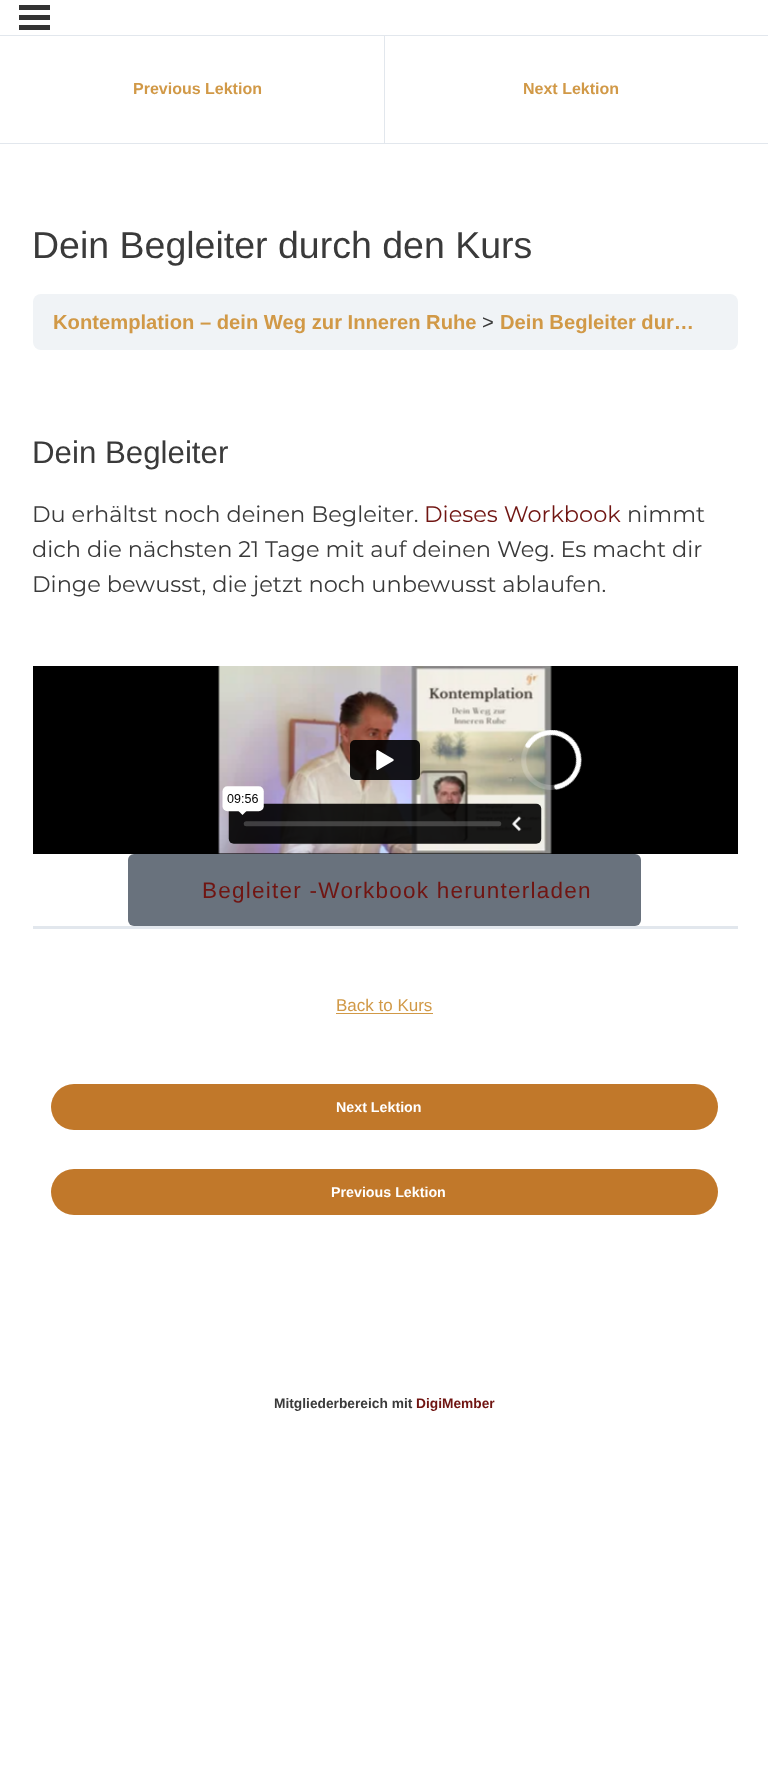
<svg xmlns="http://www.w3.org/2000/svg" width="768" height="1788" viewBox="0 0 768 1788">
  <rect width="100%" height="100%" fill="#fff"/>
  <path d="M0 143h768v1H0z" fill="#e2e7ed"/>
  <path d="M19 5h31v5H19z" fill="#333"/>
  <path d="M19 15h31v5H19z" fill="#333"/>
  <path d="M19 25h31v5H19z" fill="#333"/>
  <path d="M0 35h768v1H0z" fill="#e2e7ed"/>
  <path d="M384 36h1v107H384z" fill="#e2e7ed"/>
  <rect x="33" y="294" width="705" height="56" rx="8" fill="#f0f3f6"/>
  <path d="M33 666h705v188H33z" fill="#000"/>
  <image x="218" y="666" width="364" height="188" href="img/1.png"/>
  <rect x="128" y="854" width="513" height="72" rx="6" fill="#69727d"/>
  <path d="M33 926h705v3H33z" fill="#e2e7ed"/>
  <path d="M336 1013h97v1H336z" fill="#d19947"/>
  <rect x="51" y="1084" width="667" height="46" rx="23" fill="#c1782a"/>
  <rect x="51" y="1169" width="667" height="46" rx="23" fill="#c1782a"/>
  <g font-family="Liberation Sans" font-size="16" font-weight="bold" fill="#d19947">
    <text x="133" y="94">Previous Lektion</text>
    <text x="523" y="94">Next Lektion</text>
  </g>
  <text x="32" y="258" font-family="Liberation Sans" font-size="37.5" fill="#3a3a3a">Dein Begleiter durch den Kurs</text>
  <text x="53" y="329" font-family="Liberation Sans" font-size="20.2" font-weight="bold" fill="#d19947">Kontemplation – dein Weg zur Inneren Ruhe</text>
  <text x="482" y="329" font-family="Liberation Sans" font-size="20.2" fill="#3a3a3a">&gt;</text>
  <text x="500" y="329" font-family="Liberation Sans" font-size="20.2" font-weight="bold" fill="#d19947">Dein Begleiter dur…</text>
  <text x="32" y="463" font-family="Liberation Sans" font-size="31.25" fill="#3a3a3a">Dein Begleiter</text>
  <text x="32" y="522" font-family="Montserrat" font-size="22.5" font-weight="100" fill="#3a3a3a">Du erhältst noch deinen Begleiter.</text>
  <text x="424" y="522" font-family="Montserrat" font-size="22.5" font-weight="100" fill="#701512">Dieses Workbook</text>
  <g font-family="Montserrat" font-size="22.5" font-weight="100" fill="#3a3a3a">
    <text x="627" y="522">nimmt</text>
    <text x="32" y="557">dich die nächsten 21 Tage mit auf deinen Weg. Es macht dir</text>
    <text x="32" y="592">Dinge bewusst, die jetzt noch unbewusst ablaufen.</text>
  </g>
  <text x="202" y="898" font-family="Liberation Sans" font-size="22.5" letter-spacing="1.25" fill="#701512">Begleiter -Workbook herunterladen</text>
  <text x="336" y="1011" font-family="Liberation Sans" font-size="17" fill="#d19947">Back to Kurs</text>
  <g font-family="Liberation Sans" font-size="14.25" font-weight="bold" fill="#fff">
    <text x="336" y="1112">Next Lektion</text>
    <text x="331" y="1197">Previous Lektion</text>
  </g>
  <text x="274" y="1408" font-family="Liberation Sans" font-size="13.75" font-weight="bold" fill="#3a3a3a">Mitgliederbereich mit</text>
  <text x="416" y="1408" font-family="Liberation Sans" font-size="13.75" font-weight="bold" fill="#701512">DigiMember</text>
</svg>
